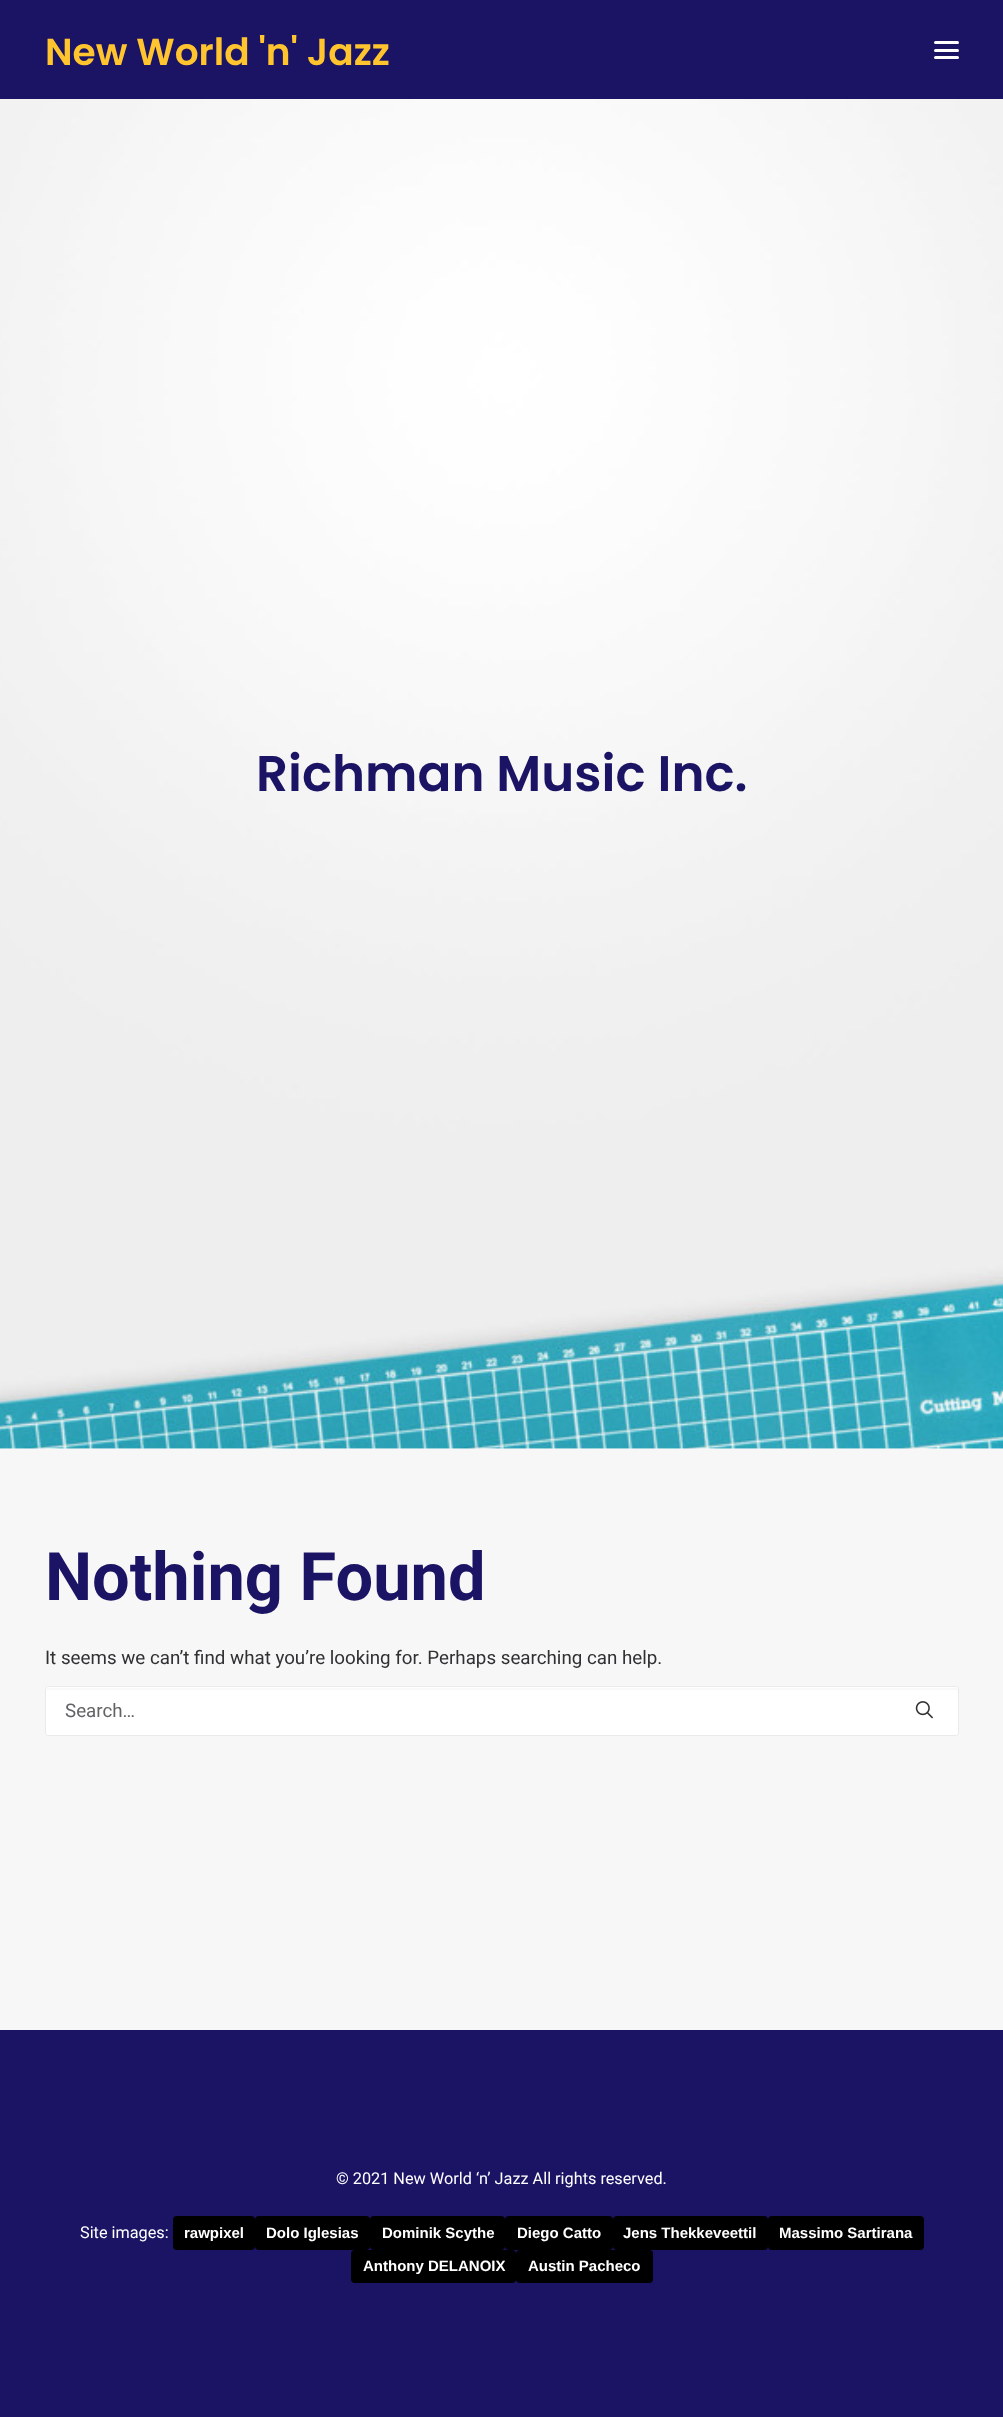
<svg xmlns="http://www.w3.org/2000/svg" width="1003" height="2417" viewBox="0 0 1003 2417">
  <rect width="100%" height="100%" fill="#f7f7f7"/>
  <path d="M0 0h1003v99H0z" fill="#1b1464"/>
  <rect x="934" y="49" width="25" height="3" rx="1.5" fill="#fff"/>
  <rect x="934" y="41" width="25" height="3" rx="1.5" fill="#fff"/>
  <rect x="934" y="56" width="25" height="3" rx="1.5" fill="#fff"/>
  <image x="0" y="99" width="1003" height="1350" href="img/1.png"/>
  <rect x="45" y="1686" width="914" height="50" rx="2.5" fill="#fff"/>
  <path d="M48 1690H956L958 1691V1688H47L46 1689V1691Z" fill="#f9f9f9"/>
  <rect x="45.5" y="1686.5" width="913" height="49" rx="2" fill="none" stroke="#eaeaea"/>
  <image x="915" y="1701" width="18" height="18" href="img/2.png"/>
  <path d="M0 2030h1003v387H0z" fill="#1b1464"/>
  <rect x="173" y="2216" width="82" height="34" rx="4" fill="#000"/>
  <rect x="255" y="2216" width="115" height="34" rx="4" fill="#000"/>
  <rect x="370" y="2216" width="135" height="34" rx="4" fill="#000"/>
  <rect x="505" y="2216" width="108" height="34" rx="4" fill="#000"/>
  <rect x="613" y="2216" width="155" height="34" rx="4" fill="#000"/>
  <rect x="768" y="2216" width="156" height="34" rx="4" fill="#000"/>
  <rect x="351" y="2250" width="165" height="33" rx="4" fill="#000"/>
  <rect x="516" y="2250" width="137" height="33" rx="4" fill="#000"/>
  <text x="45" y="65" font-family="Poppins" font-size="37.5" font-weight="600" fill="#ffc42e">New World 'n' Jazz</text>
  <text x="256" y="791" font-family="Poppins" font-size="50" font-weight="600" fill="#1b1464">Richman Music Inc.</text>
  <text x="45" y="1600" font-family="Roboto" font-size="66.75" font-weight="bold" fill="#1b1464">Nothing Found</text>
  <text x="45" y="1664" font-family="Roboto" font-size="18.75" fill="#303133">It seems we can’t find what you’re looking for. Perhaps searching can help.</text>
  <text x="65" y="1717" font-family="Roboto" font-size="18.75" fill="#626365">Search…</text>
  <g font-family="Roboto" font-size="16.25" fill="#fff">
    <text x="336" y="2184">© 2021 New World ‘n’ Jazz All rights reserved.</text>
    <text x="80" y="2238">Site images:</text>
  </g>
  <g font-family="Liberation Sans" font-size="15" font-weight="bold" fill="#fff">
    <text x="184" y="2238">rawpixel</text>
    <text x="266" y="2238">Dolo Iglesias</text>
    <text x="382" y="2238">Dominik Scythe</text>
    <text x="517" y="2238">Diego Catto</text>
    <text x="623" y="2238">Jens Thekkeveettil</text>
    <text x="779" y="2238">Massimo Sartirana</text>
    <text x="363" y="2271">Anthony DELANOIX</text>
    <text x="528" y="2271">Austin Pacheco</text>
  </g>
</svg>
